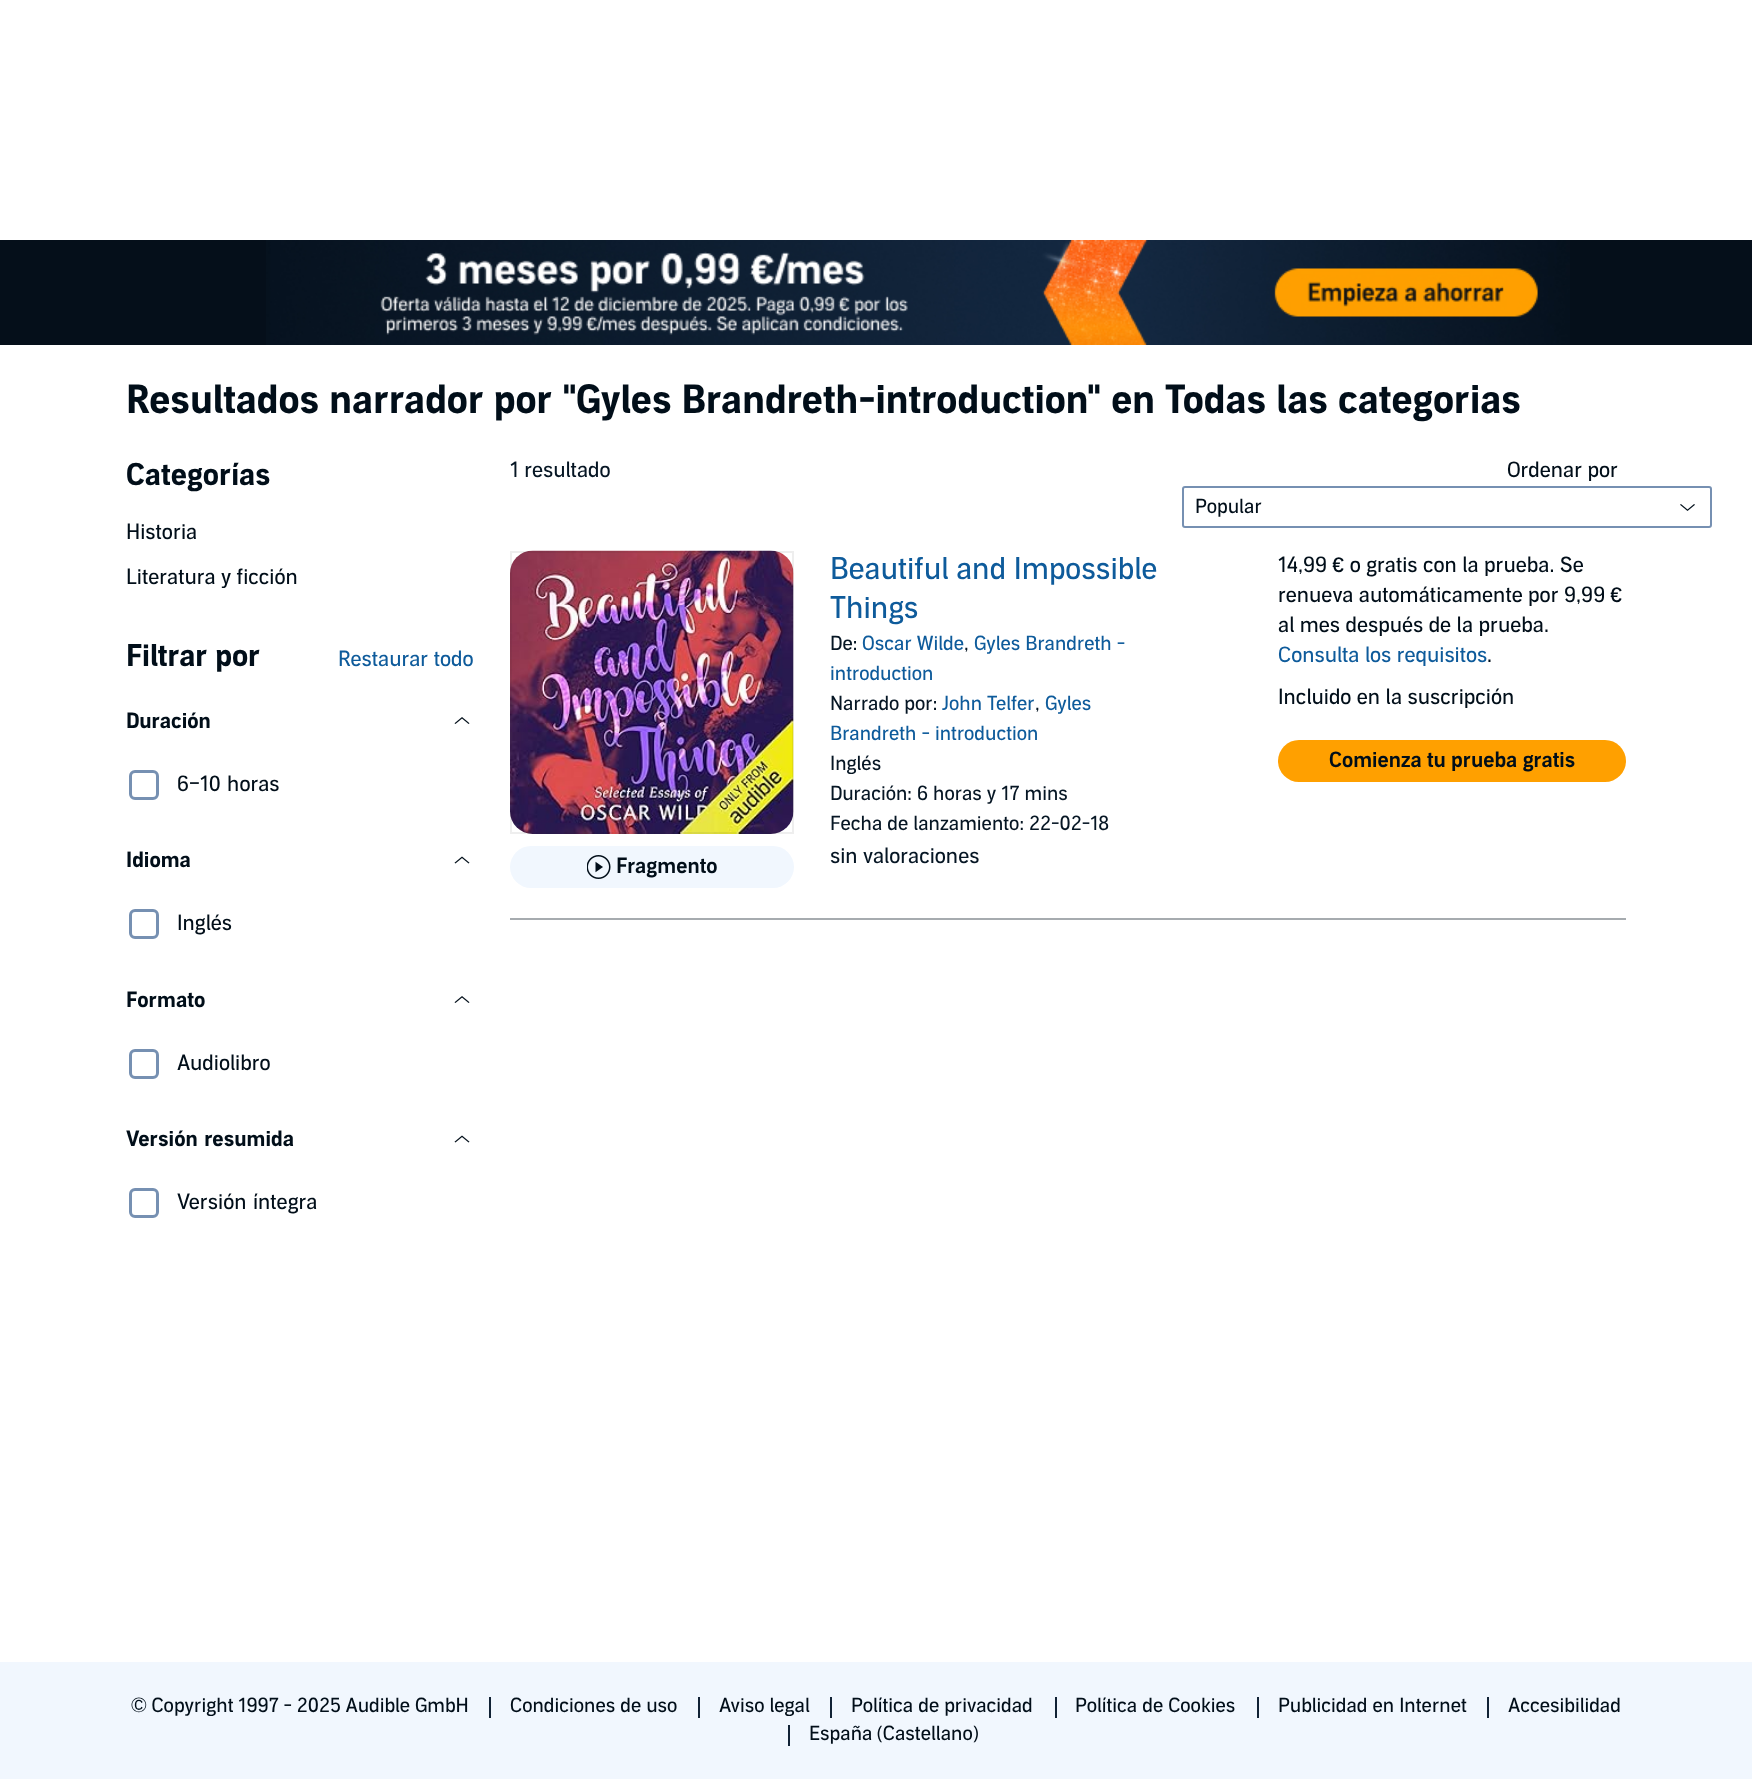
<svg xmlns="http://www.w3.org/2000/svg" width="1752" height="1779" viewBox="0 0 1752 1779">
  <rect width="100%" height="100%" fill="#fff"/>
  <path d="M0 240h1752v105H0z" fill="#050f1a"/>
  <image x="266" y="240" width="1304" height="105" href="img/1.png"/>
  <image x="454" y="717" width="16" height="7" href="img/2.png"/>
  <rect x="130.5" y="771.5" width="27" height="27" rx="4.5" fill="none" stroke="#7690b2" stroke-width="3"/>
  <image x="454" y="856" width="16" height="8" href="img/3.png"/>
  <rect x="130.5" y="910.5" width="27" height="27" rx="4.5" fill="none" stroke="#7690b2" stroke-width="3"/>
  <image x="454" y="996" width="16" height="7" href="img/2.png"/>
  <rect x="130.5" y="1050.5" width="27" height="27" rx="4.5" fill="none" stroke="#7690b2" stroke-width="3"/>
  <image x="454" y="1135" width="16" height="8" href="img/3.png"/>
  <rect x="130.5" y="1189.5" width="27" height="27" rx="4.5" fill="none" stroke="#7690b2" stroke-width="3"/>
  <rect x="1183" y="487" width="528" height="40" rx="2" fill="none" stroke="#7690b2" stroke-width="2"/>
  <image x="1680" y="504" width="15" height="7" href="img/4.png"/>
  <image x="510" y="550" width="284" height="284" href="img/5.png"/>
  <path d="M511 552h282v281H511z" fill="none" stroke="#21232514" stroke-width="2"/>
  <rect x="510" y="846" width="284" height="42" rx="21" fill="#f1f7fe"/>
  <image x="587" y="855" width="24" height="24" href="img/6.png"/>
  <rect x="1278" y="740" width="348" height="42" rx="21" fill="#ffa000"/>
  <path d="M510 918h1116v2H510z" fill="#a6abaf"/>
  <path d="M0 1662h1752v117H0z" fill="#f1f7fe"/>
  <path d="M489 1697h2v21H489z" fill="#112235"/>
  <path d="M698 1697h2v21H698z" fill="#112235"/>
  <path d="M830 1697h2v21H830z" fill="#112235"/>
  <path d="M1055 1697h2v21H1055z" fill="#112235"/>
  <path d="M1257 1697h2v21H1257z" fill="#112235"/>
  <path d="M1487 1697h2v21H1487z" fill="#112235"/>
  <path d="M788 1725h2v21H788z" fill="#112235"/>
  <text x="126" y="413" font-family="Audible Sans" font-size="39" font-weight="bold" fill="#010e19">Resultados narrador por "Gyles Brandreth-introduction" en Todas las categorias</text>
  <text x="126" y="485" font-family="Audible Sans" font-size="30" font-weight="bold" fill="#010e19">Categorías</text>
  <g font-family="Audible Sans" font-size="21" fill="#010e19">
    <text x="126" y="539">Historia</text>
    <text x="126" y="584">Literatura y ficción</text>
  </g>
  <text x="126" y="666" font-family="Audible Sans" font-size="30" font-weight="bold" fill="#010e19">Filtrar por</text>
  <text x="338" y="666" font-family="Audible Sans" font-size="21" fill="#0e5b9b">Restaurar todo</text>
  <text x="126" y="728" font-family="Audible Sans" font-size="21" font-weight="bold" fill="#010e19">Duración</text>
  <text x="177" y="791" word-spacing="1" font-family="Audible Sans" font-size="21" fill="#010e19">6–10 horas</text>
  <text x="126" y="867" font-family="Audible Sans" font-size="21" font-weight="bold" fill="#010e19">Idioma</text>
  <text x="177" y="930" font-family="Audible Sans" font-size="21" fill="#010e19">Inglés</text>
  <text x="126" y="1007" font-family="Audible Sans" font-size="21" font-weight="bold" fill="#010e19">Formato</text>
  <text x="177" y="1070" font-family="Audible Sans" font-size="21" fill="#010e19">Audiolibro</text>
  <text x="126" y="1146" word-spacing="1" font-family="Audible Sans" font-size="21" font-weight="bold" fill="#010e19">Versión resumida</text>
  <text x="177" y="1209" word-spacing="1" font-family="Audible Sans" font-size="21" fill="#010e19">Versión íntegra</text>
  <text x="510" y="477" font-family="Audible Sans" font-size="21" fill="#061624">1 resultado</text>
  <text x="1507" y="477" font-family="Audible Sans" font-size="21" fill="#010e19">Ordenar por</text>
  <text x="1195" y="513" font-family="Audible Sans" font-size="19.5" fill="#010e19">Popular</text>
  <g font-family="Audible Sans" font-size="30" fill="#0e5b9b">
    <text x="830" y="579">Beautiful and Impossible</text>
    <text x="830" y="618">Things</text>
  </g>
  <text x="830" y="650" font-family="Audible Sans" font-size="19.5" fill="#061624">De:</text>
  <text x="862" y="650" font-family="Audible Sans" font-size="19.5" fill="#0e5b9b">Oscar Wilde</text>
  <text x="964" y="650" font-family="Audible Sans" font-size="19.5" fill="#061624">,</text>
  <g font-family="Audible Sans" font-size="19.5" fill="#0e5b9b">
    <text x="974" y="650">Gyles Brandreth -</text>
    <text x="830" y="680">introduction</text>
  </g>
  <text x="830" y="710" font-family="Audible Sans" font-size="19.5" fill="#061624">Narrado por:</text>
  <text x="942" y="710" font-family="Audible Sans" font-size="19.5" fill="#0e5b9b">John Telfer</text>
  <text x="1035" y="710" font-family="Audible Sans" font-size="19.5" fill="#061624">,</text>
  <g font-family="Audible Sans" font-size="19.5" fill="#0e5b9b">
    <text x="1045" y="710">Gyles</text>
    <text x="830" y="740">Brandreth - introduction</text>
  </g>
  <g font-family="Audible Sans" font-size="19.5" fill="#061624">
    <text x="830" y="770">Inglés</text>
    <text x="830" y="800">Duración: 6 horas y 17 mins</text>
    <text x="830" y="830">Fecha de lanzamiento: 22-02-18</text>
  </g>
  <text x="830" y="863" font-family="Audible Sans" font-size="21" fill="#061624">sin valoraciones</text>
  <text x="616" y="873" font-family="Audible Sans" font-size="21" font-weight="600" fill="#010e19">Fragmento</text>
  <g font-family="Audible Sans" font-size="21" fill="#010e19">
    <text x="1278" y="572">14,99 € o gratis con la prueba. Se</text>
    <text x="1278" y="602">renueva automáticamente por 9,99 €</text>
    <text x="1278" y="632">al mes después de la prueba.</text>
  </g>
  <text x="1278" y="662" font-family="Audible Sans" font-size="21" fill="#0e5b9b">Consulta los requisitos</text>
  <g font-family="Audible Sans" font-size="21" fill="#010e19">
    <text x="1487" y="662">.</text>
    <text x="1278" y="704">Incluido en la suscripción</text>
  </g>
  <text x="1329" y="767" font-family="Audible Sans" font-size="21" font-weight="600" fill="#010e19">Comienza tu prueba gratis</text>
  <g font-family="Audible Sans" font-size="19.5" fill="#010e19">
    <text x="131" y="1712" word-spacing="-0.25">© Copyright 1997 - 2025 Audible GmbH</text>
    <text x="510" y="1712">Condiciones de uso</text>
    <text x="719" y="1712">Aviso legal</text>
    <text x="851" y="1712">Política de privacidad</text>
    <text x="1075" y="1712">Política de Cookies</text>
    <text x="1278" y="1712">Publicidad en Internet</text>
    <text x="1508" y="1712">Accesibilidad</text>
    <text x="809" y="1740" word-spacing="-1">España (Castellano)</text>
  </g>
</svg>
